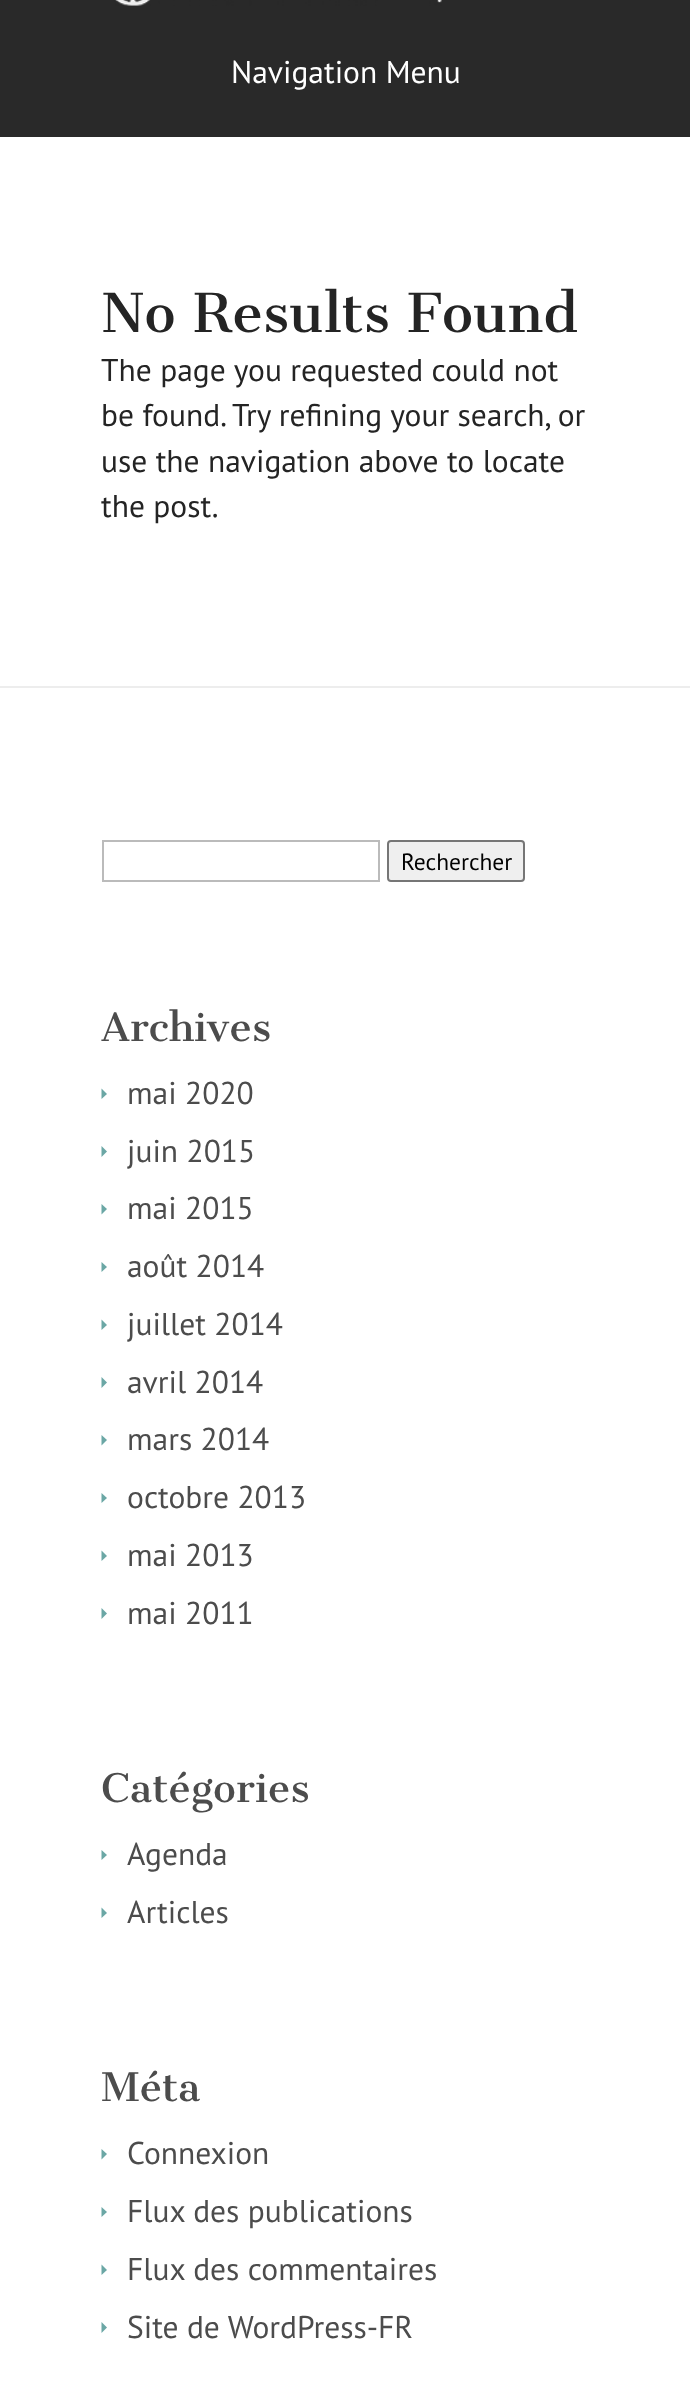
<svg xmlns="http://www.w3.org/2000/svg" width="690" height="2381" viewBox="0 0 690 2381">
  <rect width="100%" height="100%" fill="#fff"/>
  <path d="M0 0h690v137H0z" fill="#292929"/>
  <image x="115" y="0" width="327" height="6" href="img/1.png"/>
  <path d="M0 686h690v2H0z" fill="#ededed"/>
  <path d="M103 841h276v40H103z" fill="none" stroke="#bbb" stroke-width="2"/>
  <rect x="388" y="841" width="136" height="40" rx="3" fill="#efefef" stroke="#767676" stroke-width="2"/>
  <path d="M101.5 1099V1088.5L107 1094Z" fill="#6ba7a5"/>
  <path d="M101.5 1157V1146L107 1151.5Z" fill="#6ba7a5"/>
  <path d="M101.5 1214.5V1204L107 1209Z" fill="#6ba7a5"/>
  <path d="M101.5 1272V1262L107 1267Z" fill="#6ba7a5"/>
  <path d="M101.5 1330V1319.5L107 1325Z" fill="#6ba7a5"/>
  <path d="M101.5 1388V1377L107 1382.5Z" fill="#6ba7a5"/>
  <path d="M101.5 1445.5V1435L107 1440Z" fill="#6ba7a5"/>
  <path d="M101.5 1503V1493L107 1498Z" fill="#6ba7a5"/>
  <path d="M101.5 1561V1550.5L107 1556Z" fill="#6ba7a5"/>
  <path d="M101.5 1619V1608L107 1613.5Z" fill="#6ba7a5"/>
  <path d="M101.5 1860V1850L107 1855Z" fill="#6ba7a5"/>
  <path d="M101.5 1918V1907.5L107 1913Z" fill="#6ba7a5"/>
  <path d="M101.5 2159.5V2149L107 2154Z" fill="#6ba7a5"/>
  <path d="M101.5 2217V2207L107 2212Z" fill="#6ba7a5"/>
  <path d="M101.5 2275V2264.5L107 2270Z" fill="#6ba7a5"/>
  <path d="M101.5 2333V2322L107 2327.5Z" fill="#6ba7a5"/>
  <text x="231" y="83" font-family="PT Sans" font-size="31.5" fill="#fff">Navigation Menu</text>
  <text x="101" y="332" font-family="Cantata One" font-size="52.5" fill="#242424">No Results Found</text>
  <g font-family="PT Sans" font-size="31.5" fill="#242424">
    <text x="101" y="381">The page you requested could not</text>
    <text x="101" y="426">be found. Try refining your search, or</text>
    <text x="101" y="472">use the navigation above to locate</text>
    <text x="101" y="517">the post.</text>
  </g>
  <text x="401" y="870" font-family="PT Sans" font-size="23.5" fill="#000">Rechercher</text>
  <text x="101" y="1041" font-family="Cantata One" font-size="38.5" fill="#4c4c4c">Archives</text>
  <g font-family="PT Sans" font-size="31.5" fill="#4c4c4c">
    <text x="127" y="1104">mai 2020</text>
    <text x="127" y="1162">juin 2015</text>
    <text x="127" y="1219">mai 2015</text>
    <text x="127" y="1277">août 2014</text>
    <text x="127" y="1335">juillet 2014</text>
    <text x="127" y="1393">avril 2014</text>
    <text x="127" y="1450">mars 2014</text>
    <text x="127" y="1508">octobre 2013</text>
    <text x="127" y="1566">mai 2013</text>
    <text x="127" y="1624">mai 2011</text>
  </g>
  <text x="101" y="1802" font-family="Cantata One" font-size="38.5" fill="#4c4c4c">Catégories</text>
  <g font-family="PT Sans" font-size="31.5" fill="#4c4c4c">
    <text x="127" y="1865">Agenda</text>
    <text x="127" y="1923">Articles</text>
  </g>
  <text x="101" y="2101" font-family="Cantata One" font-size="38.5" fill="#4c4c4c">Méta</text>
  <g font-family="PT Sans" font-size="31.5" fill="#4c4c4c">
    <text x="127" y="2164">Connexion</text>
    <text x="127" y="2222">Flux des publications</text>
    <text x="127" y="2280">Flux des commentaires</text>
    <text x="127" y="2338">Site de WordPress-FR</text>
  </g>
</svg>
